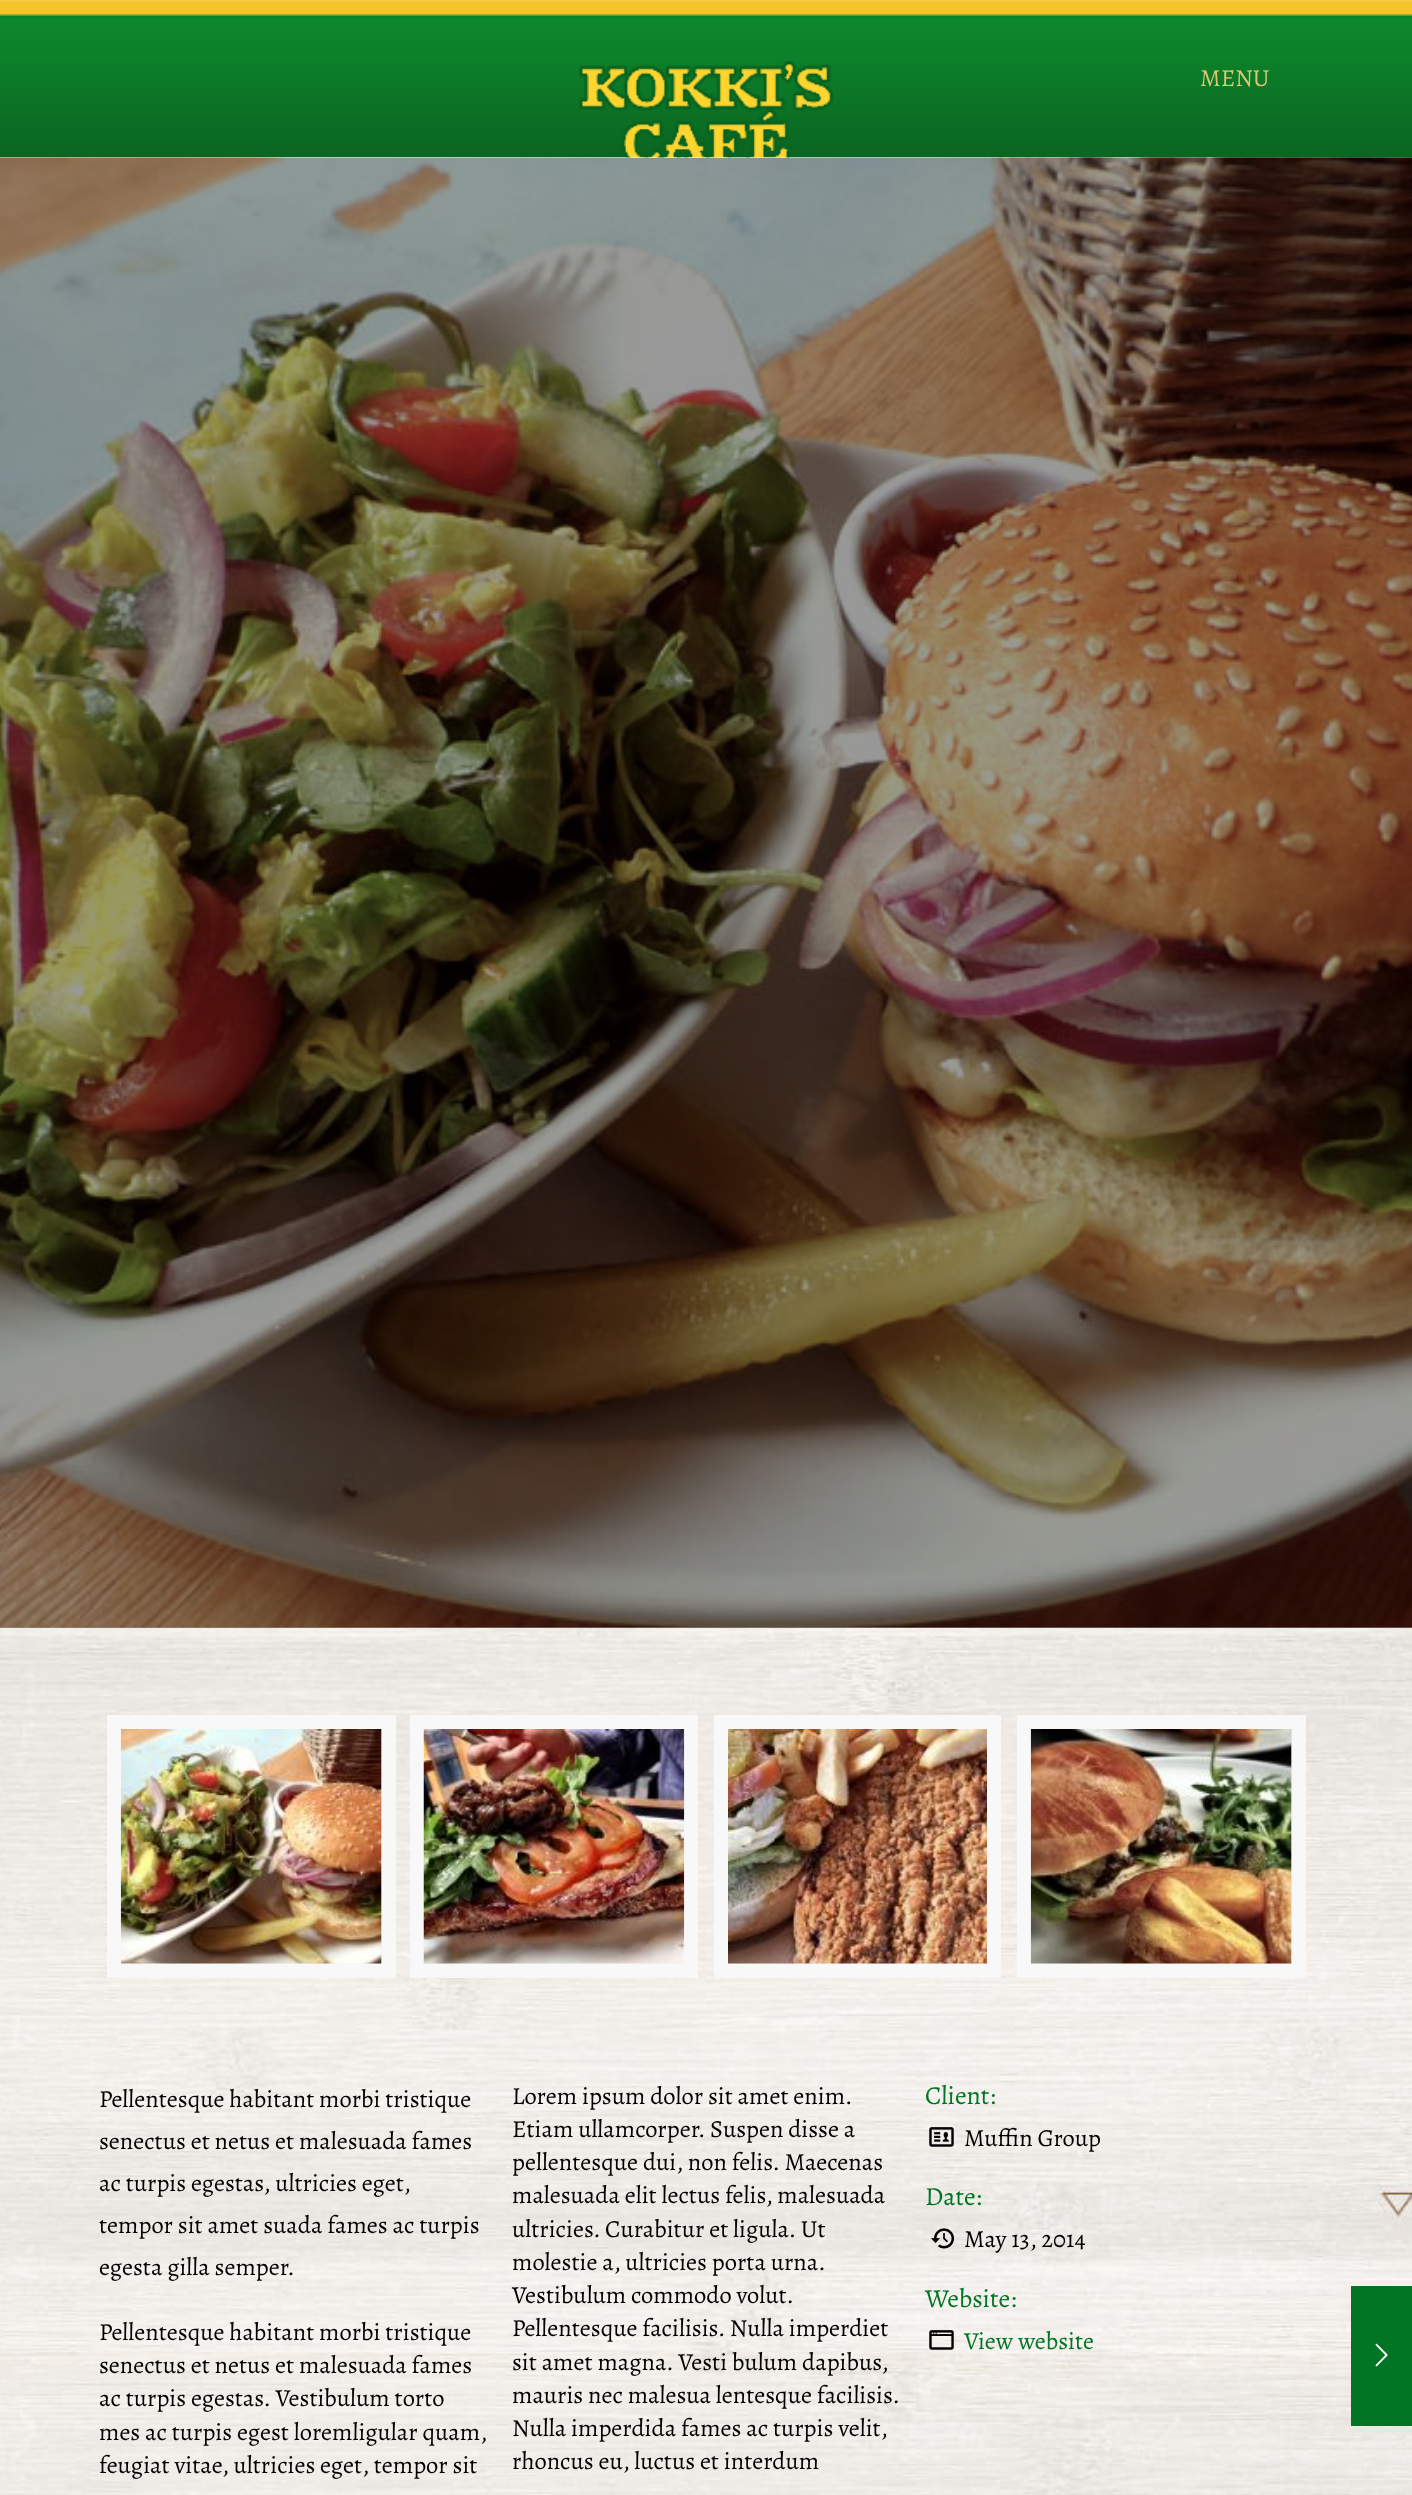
<svg xmlns="http://www.w3.org/2000/svg" width="1412" height="2495" viewBox="0 0 1412 2495">
  <rect width="100%" height="100%" fill="#fff"/>
  <image x="0" y="157" width="1412" height="2338" href="img/1.png"/>
  <image x="0" y="0" width="1412" height="158" href="img/2.png"/>
  <image x="579" y="61" width="254" height="97" href="img/3.png"/>
  <image x="0" y="157" width="1412" height="1471" href="img/4.png"/>
  <path d="M0 158h1412v1470H0z" fill="#00000066"/>
  <path d="M114 1722h275v249H114z" fill="none" stroke="#f8f8f8" stroke-width="14"/>
  <image x="120" y="1729" width="262" height="235" href="img/5.png"/>
  <path d="M417 1722h274v249H417z" fill="none" stroke="#f8f8f8" stroke-width="14"/>
  <image x="423" y="1729" width="262" height="235" href="img/6.png"/>
  <path d="M721 1722h273v249H721z" fill="none" stroke="#f8f8f8" stroke-width="14"/>
  <image x="728" y="1729" width="259" height="235" href="img/7.png"/>
  <path d="M1024 1722h275v249H1024z" fill="none" stroke="#f8f8f8" stroke-width="14"/>
  <image x="1030" y="1729" width="262" height="235" href="img/8.png"/>
  <image x="929" y="2127" width="25" height="20" href="img/9.png"/>
  <image x="931" y="2228" width="23" height="21" href="img/10.png"/>
  <image x="929" y="2330" width="25" height="20" href="img/11.png"/>
  <path d="M1351 2286h61v140H1351z" fill="#017524"/>
  <image x="1375" y="2343" width="13" height="24" href="img/12.png"/>
  <text x="1200" y="86" font-family="Alegreya" font-size="24.5" fill="#dec56e">MENU</text>
  <g font-family="Alegreya" font-size="24.5" fill="#000">
    <text x="99" y="2107">Pellentesque habitant morbi tristique</text>
    <text x="99" y="2149">senectus et netus et malesuada fames</text>
    <text x="99" y="2191">ac turpis egestas, ultricies eget,</text>
    <text x="99" y="2233">tempor sit amet suada fames ac turpis</text>
    <text x="99" y="2275">egesta gilla semper.</text>
    <text x="99" y="2340">Pellentesque habitant morbi tristique</text>
    <text x="99" y="2373">senectus et netus et malesuada fames</text>
    <text x="99" y="2406">ac turpis egestas. Vestibulum torto</text>
    <text x="99" y="2440">mes ac turpis egest loremligular quam,</text>
    <text x="99" y="2473">feugiat vitae, ultricies eget, tempor sit</text>
    <text x="512" y="2104">Lorem ipsum dolor sit amet enim.</text>
    <text x="512" y="2137">Etiam ullamcorper. Suspen disse a</text>
    <text x="512" y="2170">pellentesque dui, non felis. Maecenas</text>
    <text x="512" y="2203">malesuada elit lectus felis, malesuada</text>
    <text x="512" y="2237">ultricies. Curabitur et ligula. Ut</text>
    <text x="512" y="2270">molestie a, ultricies porta urna.</text>
    <text x="512" y="2303">Vestibulum commodo volut.</text>
    <text x="512" y="2336">Pellentesque facilisis. Nulla imperdiet</text>
    <text x="512" y="2370">sit amet magna. Vesti bulum dapibus,</text>
    <text x="512" y="2403">mauris nec malesua lentesque facilisis.</text>
    <text x="512" y="2436">Nulla imperdida fames ac turpis velit,</text>
    <text x="512" y="2469">rhoncus eu, luctus et interdum</text>
  </g>
  <text x="925" y="2104" font-family="Alegreya" font-size="26" fill="#017524">Client:</text>
  <text x="964" y="2146" font-family="Alegreya" font-size="24.5" fill="#000">Muffin Group</text>
  <text x="925" y="2205" font-family="Alegreya" font-size="26" fill="#017524">Date:</text>
  <text x="964" y="2247" font-family="Alegreya" font-size="24.5" fill="#000">May 13, 2014</text>
  <text x="925" y="2307" font-family="Alegreya" font-size="26" fill="#017524">Website:</text>
  <text x="964" y="2349" font-family="Alegreya" font-size="24.5" fill="#017524">View website</text>
</svg>
